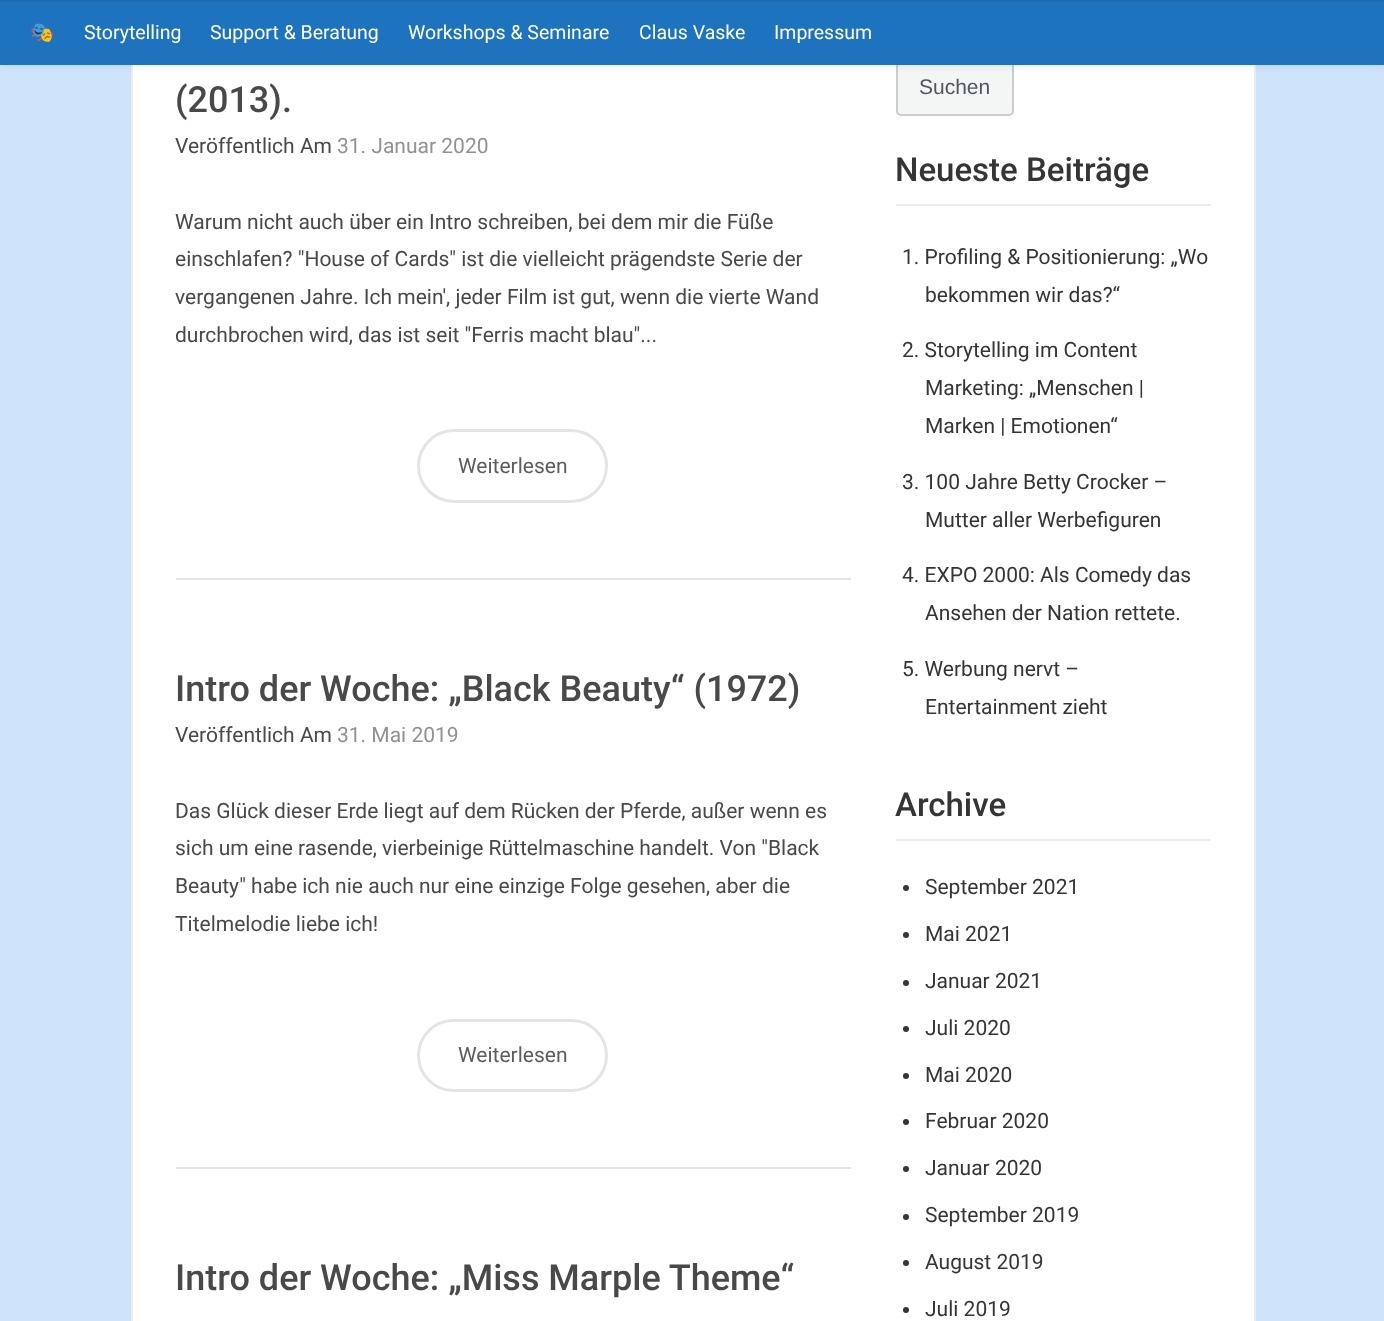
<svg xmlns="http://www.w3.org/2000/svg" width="1384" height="1321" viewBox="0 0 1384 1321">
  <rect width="100%" height="100%" fill="#cde4fb"/>
  <path d="M133 65h1121v1256H133z" fill="#fff"/>
  <path d="M132 -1h1123v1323H132z" fill="none" stroke="#ededed" stroke-width="2"/>
  <rect x="896" y="59" width="118" height="57" rx="5" fill="#f4f5f5"/>
  <rect x="897" y="60" width="116" height="55" rx="4" fill="none" stroke="#27303933" stroke-width="2"/>
  <path d="M3 0h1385v65H3z" fill="#0000001a" filter="blur(4px)"/>
  <path d="M0 2h1384v63H0z" fill="#1e73be"/>
  <path d="M0 0h1384v2H0z" fill="#1c6bb1"/>
  <path d="M176 578h675v2H176z" fill="#e5e5e5"/>
  <rect x="418.5" y="430.5" width="188" height="71" rx="35.5" fill="none" stroke="#e4e4e4" stroke-width="3"/>
  <path d="M176 1167h675v2H176z" fill="#e5e5e5"/>
  <rect x="418.5" y="1020.5" width="188" height="70" rx="35" fill="none" stroke="#e4e4e4" stroke-width="3"/>
  <path d="M896 204h315v2H896z" fill="#ededed"/>
  <path d="M896 839h315v2H896z" fill="#ededed"/>
  <circle cx="906" cy="888" r="3" fill="#353535"/>
  <circle cx="906" cy="935" r="3" fill="#353535"/>
  <circle cx="906" cy="983" r="3" fill="#353535"/>
  <circle cx="906" cy="1029" r="3" fill="#353535"/>
  <circle cx="906" cy="1076" r="3" fill="#353535"/>
  <circle cx="906" cy="1122" r="3" fill="#353535"/>
  <circle cx="906" cy="1169" r="3" fill="#353535"/>
  <circle cx="906" cy="1217" r="3" fill="#353535"/>
  <circle cx="906" cy="1263" r="3" fill="#353535"/>
  <circle cx="906" cy="1310" r="3" fill="#353535"/>
  <text x="30" y="39" font-family="Noto Color Emoji" font-size="19.5" fill="#fff">🎭</text>
  <g font-family="Roboto" font-size="19.5" fill="#fff">
    <text x="84" y="39">Storytelling</text>
    <text x="210" y="39">Support &amp; Beratung</text>
    <text x="408" y="39">Workshops &amp; Seminare</text>
    <text x="639" y="39">Claus Vaske</text>
    <text x="774" y="39">Impressum</text>
  </g>
  <text x="175" y="112" font-family="Roboto" font-size="36" font-weight="500" fill="#494949">(2013).</text>
  <text x="175" y="153" font-family="Roboto" font-size="21" fill="#494949">Veröffentlich Am</text>
  <text x="337" y="153" font-family="Roboto" font-size="21" fill="#929292">31. Januar 2020</text>
  <g font-family="Roboto" font-size="21" fill="#494949">
    <text x="175" y="229">Warum nicht auch über ein Intro schreiben, bei dem mir die Füße</text>
    <text x="175" y="266">einschlafen? "House of Cards" ist die vielleicht prägendste Serie der</text>
    <text x="175" y="304">vergangenen Jahre. Ich mein', jeder Film ist gut, wenn die vierte Wand</text>
    <text x="175" y="342">durchbrochen wird, das ist seit "Ferris macht blau"...</text>
  </g>
  <text x="458" y="473" font-family="Roboto" font-size="21" fill="#5d5d5d">Weiterlesen</text>
  <text x="175" y="701" font-family="Roboto" font-size="36" font-weight="500" fill="#494949">Intro der Woche: „Black Beauty“ (1972)</text>
  <text x="175" y="742" font-family="Roboto" font-size="21" fill="#494949">Veröffentlich Am</text>
  <text x="337" y="742" font-family="Roboto" font-size="21" fill="#929292">31. Mai 2019</text>
  <g font-family="Roboto" font-size="21" fill="#494949">
    <text x="175" y="818">Das Glück dieser Erde liegt auf dem Rücken der Pferde, außer wenn es</text>
    <text x="175" y="855">sich um eine rasende, vierbeinige Rüttelmaschine handelt. Von "Black</text>
    <text x="175" y="893">Beauty" habe ich nie auch nur eine einzige Folge gesehen, aber die</text>
    <text x="175" y="931">Titelmelodie liebe ich!</text>
  </g>
  <text x="458" y="1062" font-family="Roboto" font-size="21" fill="#5d5d5d">Weiterlesen</text>
  <text x="175" y="1290" font-family="Roboto" font-size="36" font-weight="500" fill="#494949">Intro der Woche: „Miss Marple Theme“</text>
  <text x="919" y="94" font-family="Liberation Sans" font-size="21" fill="#50575f">Suchen</text>
  <text x="895" y="181" font-family="Roboto" font-size="33" font-weight="500" fill="#353535">Neueste Beiträge</text>
  <g font-family="Roboto" font-size="21" fill="#353535">
    <text x="902" y="264">1. Profiling &amp; Positionierung: „Wo</text>
    <text x="925" y="302">bekommen wir das?“</text>
    <text x="902" y="357">2. Storytelling im Content</text>
    <text x="925" y="395">Marketing: „Menschen |</text>
    <text x="925" y="433">Marken | Emotionen“</text>
    <text x="902" y="489">3. 100 Jahre Betty Crocker –</text>
    <text x="925" y="527">Mutter aller Werbefiguren</text>
    <text x="902" y="582">4. EXPO 2000: Als Comedy das</text>
    <text x="925" y="620">Ansehen der Nation rettete.</text>
    <text x="902" y="676">5. Werbung nervt –</text>
    <text x="925" y="714">Entertainment zieht</text>
  </g>
  <text x="895" y="816" font-family="Roboto" font-size="33" font-weight="500" fill="#353535">Archive</text>
  <g font-family="Roboto" font-size="21" fill="#353535">
    <text x="925" y="894">September 2021</text>
    <text x="925" y="941">Mai 2021</text>
    <text x="925" y="988">Januar 2021</text>
    <text x="925" y="1035">Juli 2020</text>
    <text x="925" y="1082">Mai 2020</text>
    <text x="925" y="1128">Februar 2020</text>
    <text x="925" y="1175">Januar 2020</text>
    <text x="925" y="1222">September 2019</text>
    <text x="925" y="1269">August 2019</text>
    <text x="925" y="1316">Juli 2019</text>
  </g>
</svg>
